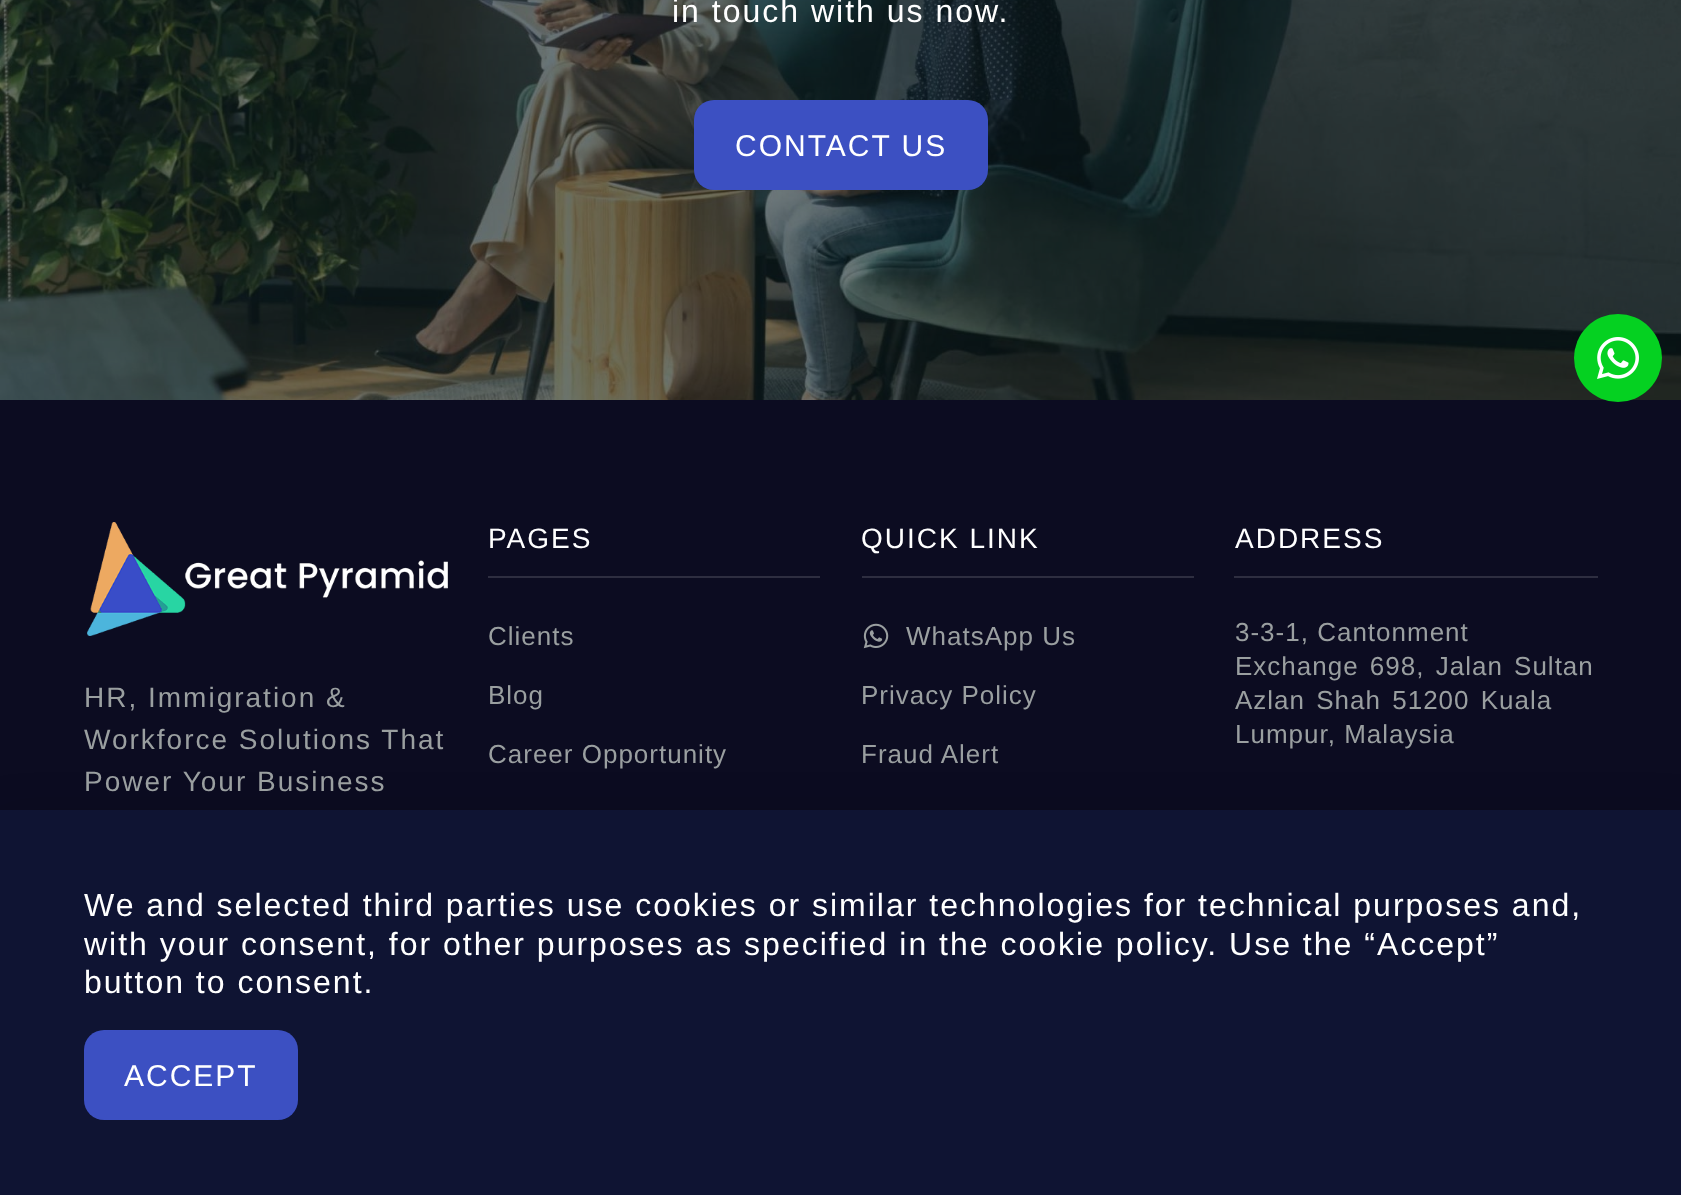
<svg xmlns="http://www.w3.org/2000/svg" width="1681" height="1195" viewBox="0 0 1681 1195">
  <rect width="100%" height="100%" fill="#fff"/>
  <image x="0" y="0" width="1681" height="400" href="img/1.png"/>
  <rect x="694" y="100" width="294" height="90" rx="20" fill="#3c50c2"/>
  <path d="M0 400h1681v410H0z" fill="#0c0c21"/>
  <circle cx="1618" cy="358" r="44" fill="#05d121"/>
  <image x="1597" y="337" width="42" height="42" href="img/2.png"/>
  <image x="87" y="522" width="361" height="114" href="img/3.png"/>
  <path d="M488 576h332v2H488z" fill="#2e2e40"/>
  <path d="M862 576h332v2H862z" fill="#2e2e40"/>
  <image x="863" y="623" width="26" height="26" href="img/4.png"/>
  <path d="M1234 576h364v2H1234z" fill="#2e2e40"/>
  <path d="M-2 820h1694v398H-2z" fill="#00000033" filter="blur(23px)"/>
  <path d="M0 810h1681v385H0z" fill="#0f1433"/>
  <rect x="84" y="1030" width="214" height="90" rx="20" fill="#3c50c2"/>
  <text x="672" y="22" font-family="Liberation Sans" font-size="32" letter-spacing="2" fill="#fff">in touch with us now.</text>
  <text x="735" y="156" font-family="Liberation Sans" font-size="30" letter-spacing="2" fill="#fff">CONTACT US</text>
  <g font-family="Liberation Sans" font-size="28" letter-spacing="2" fill="#9a9fa0">
    <text x="84" y="707">HR, Immigration &amp;</text>
    <text x="84" y="749">Workforce Solutions That</text>
    <text x="84" y="791">Power Your Business</text>
  </g>
  <text x="488" y="548" font-family="Liberation Sans" font-size="28" letter-spacing="2" fill="#fff">PAGES</text>
  <g font-family="Liberation Sans" font-size="26" letter-spacing="1" fill="#9a9fa0">
    <text x="488" y="645">Clients</text>
    <text x="488" y="704">Blog</text>
    <text x="488" y="763">Career Opportunity</text>
  </g>
  <text x="861" y="548" font-family="Liberation Sans" font-size="28" letter-spacing="2" fill="#fff">QUICK LINK</text>
  <g font-family="Liberation Sans" font-size="26" letter-spacing="1" fill="#9a9fa0">
    <text x="906" y="645">WhatsApp Us</text>
    <text x="861" y="704">Privacy Policy</text>
    <text x="861" y="763">Fraud Alert</text>
  </g>
  <text x="1235" y="548" font-family="Liberation Sans" font-size="28" letter-spacing="2" fill="#fff">ADDRESS</text>
  <g font-family="Liberation Sans" font-size="26" letter-spacing="1" fill="#9a9fa0">
    <text x="1235" y="641">3-3-1, Cantonment</text>
    <text x="1235" y="675" word-spacing="3">Exchange 698, Jalan Sultan</text>
    <text x="1235" y="709" word-spacing="3">Azlan Shah 51200 Kuala</text>
    <text x="1235" y="743">Lumpur, Malaysia</text>
  </g>
  <g font-family="Liberation Sans" font-size="32" letter-spacing="2" fill="#fff">
    <text x="84" y="916">We and selected third parties use cookies or similar technologies for technical purposes and,</text>
    <text x="84" y="955">with your consent, for other purposes as specified in the cookie policy. Use the “Accept”</text>
    <text x="84" y="993">button to consent.</text>
  </g>
  <text x="124" y="1086" font-family="Liberation Sans" font-size="30" letter-spacing="2" fill="#fff">ACCEPT</text>
</svg>
